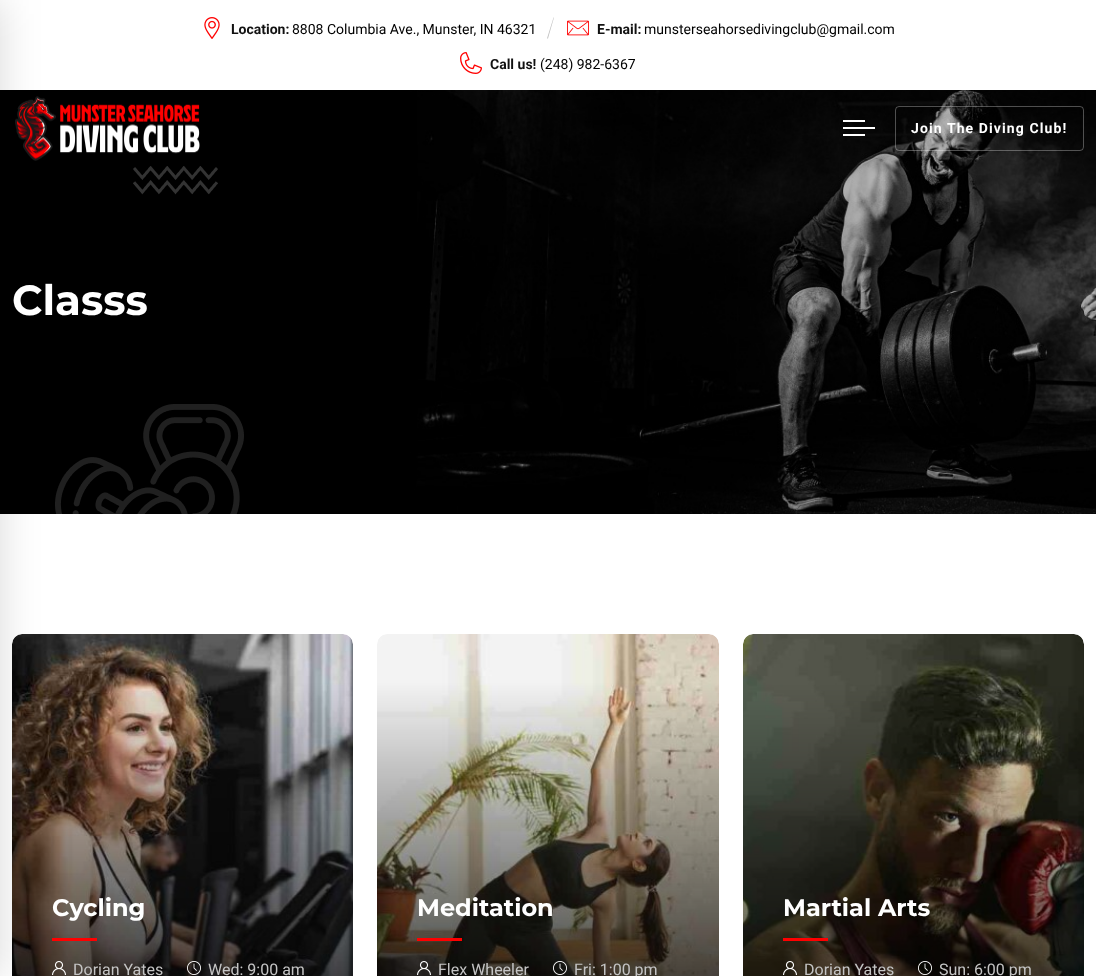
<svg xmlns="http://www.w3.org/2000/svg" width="1096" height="976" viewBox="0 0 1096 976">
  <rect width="100%" height="100%" fill="#fff"/>
  <image x="204" y="17" width="16" height="22" href="img/1.png"/>
  <path d="M554 17.5L548 38.5H547L553.5 17.5Z" fill="#c2c2c2"/>
  <image x="567" y="20" width="22" height="16" href="img/2.png"/>
  <image x="460" y="52" width="22" height="22" href="img/3.png"/>
  <image x="0" y="90" width="1096" height="424" href="img/5.png"/>
  <image x="15" y="96" width="185" height="65" href="img/4.png"/>
  <image x="55" y="404" width="189" height="110" href="img/7.png"/>
  <image x="12" y="634" width="341" height="342" href="img/8.png"/>
  <path d="M52 938h45v3H52z" fill="#f00"/>
  <image x="52" y="961" width="14" height="14" href="img/9.png"/>
  <path d="M-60 0h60v976H-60z" fill="#00000026" filter="blur(20px)"/>
  <path d="M843 120h22v2H843z" fill="#fff"/>
  <path d="M843 127h32v2H843z" fill="#fff"/>
  <path d="M843 134h22v2H843z" fill="#fff"/>
  <rect x="895.5" y="106.5" width="188" height="44" rx="3.5" fill="none" stroke="#ffffff4d"/>
  <image x="133" y="166" width="85" height="29" href="img/6.png"/>
  <image x="187" y="961" width="14" height="14" href="img/10.png"/>
  <image x="377" y="634" width="342" height="342" href="img/11.png"/>
  <path d="M417 938h45v3H417z" fill="#f00"/>
  <image x="417" y="961" width="14" height="14" href="img/12.png"/>
  <image x="553" y="961" width="14" height="14" href="img/13.png"/>
  <image x="743" y="634" width="341" height="342" href="img/14.png"/>
  <path d="M783 938h45v3H783z" fill="#f00"/>
  <image x="783" y="961" width="14" height="14" href="img/15.png"/>
  <image x="918" y="961" width="14" height="14" href="img/16.png"/>
  <text x="231" y="34" font-family="Roboto" font-size="14" font-weight="bold" fill="#111">Location:</text>
  <text x="292" y="34" font-family="Roboto" font-size="14" fill="#000">8808 Columbia Ave., Munster, IN 46321</text>
  <text x="597" y="34" font-family="Roboto" font-size="14" font-weight="bold" fill="#111">E-mail:</text>
  <text x="644" y="34" font-family="Roboto" font-size="14" fill="#000">munsterseahorsedivingclub@gmail.com</text>
  <text x="490" y="69" font-family="Roboto" font-size="14" font-weight="bold" fill="#111">Call us!</text>
  <text x="540" y="69" font-family="Roboto" font-size="14" fill="#000">(248) 982-6367</text>
  <text x="911" y="133" font-family="Roboto" font-size="14" font-weight="bold" letter-spacing="1.1" fill="#fff">Join The Diving Club!</text>
  <text x="12" y="315" font-family="Montserrat" font-size="42" font-weight="bold" fill="#fff">Classs</text>
  <text x="52" y="916" font-family="Montserrat" font-size="24" font-weight="bold" fill="#fff">Cycling</text>
  <g font-family="Roboto" font-size="16" fill="#c4c4c4">
    <text x="73" y="975">Dorian Yates</text>
    <text x="208" y="975">Wed: 9:00 am</text>
  </g>
  <text x="417" y="916" font-family="Montserrat" font-size="24" font-weight="bold" fill="#fff">Meditation</text>
  <g font-family="Roboto" font-size="16" fill="#c4c4c4">
    <text x="438" y="975">Flex Wheeler</text>
    <text x="574" y="975">Fri: 1:00 pm</text>
  </g>
  <text x="783" y="916" font-family="Montserrat" font-size="24" font-weight="bold" fill="#fff">Martial Arts</text>
  <g font-family="Roboto" font-size="16" fill="#c4c4c4">
    <text x="804" y="975">Dorian Yates</text>
    <text x="939" y="975">Sun: 6:00 pm</text>
  </g>
</svg>
